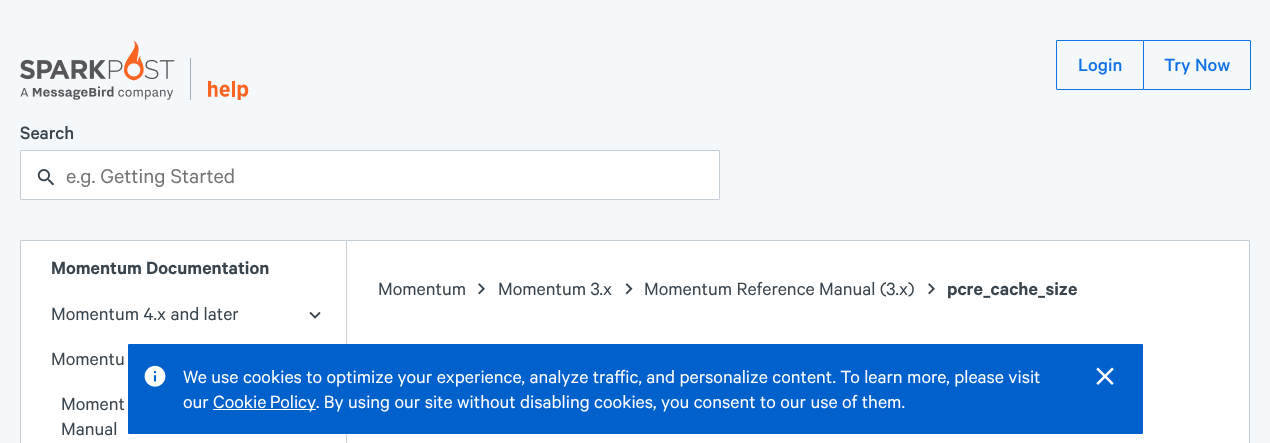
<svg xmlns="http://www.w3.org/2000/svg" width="1270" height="443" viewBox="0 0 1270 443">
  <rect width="100%" height="100%" fill="#f5f8fa"/>
  <image x="20" y="40" width="155" height="60" href="img/1.png"/>
  <path d="M190 58h1v42H190z" fill="#a2adb8"/>
  <image x="208" y="80" width="41" height="20" href="img/2.png"/>
  <rect x="1056.5" y="40.5" width="87" height="49" rx="0.5" fill="none" stroke="#1273e6"/>
  <rect x="1143.5" y="40.5" width="107" height="49" rx="0.5" fill="none" stroke="#1273e6"/>
  <rect x="20.5" y="150.5" width="699" height="49" rx="0.5" fill="#fff" stroke="#c5ced6"/>
  <image x="37" y="169" width="18" height="17" href="img/3.png"/>
  <path d="M20.5 240.5h1229v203H20.5z" fill="#fff" stroke="#c5ced6"/>
  <path d="M346 241h1v202H346z" fill="#c5ced6"/>
  <image x="309" y="311" width="12" height="8" href="img/4.png"/>
  <image x="478" y="283" width="7" height="12" href="img/5.png"/>
  <image x="625" y="283" width="8" height="12" href="img/6.png"/>
  <image x="928" y="283" width="7" height="12" href="img/5.png"/>
  <rect x="128" y="344" width="1015" height="90" rx="1" fill="#0060cc"/>
  <image x="144" y="365" width="22" height="22" href="img/7.png"/>
  <path d="M213 409h103v1H213z" fill="#fff"/>
  <image x="1096" y="367" width="18" height="18" href="img/8.png"/>
  <g font-family="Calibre" font-size="20" font-weight="500" fill="#1273e6">
    <text x="1078" y="71">Login</text>
    <text x="1164" y="71">Try Now</text>
  </g>
  <text x="20" y="139" font-family="Calibre" font-size="20" font-weight="500" fill="#39444d">Search</text>
  <text x="66" y="183" font-family="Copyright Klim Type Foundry" font-size="22.5" fill="#757575">e.g. Getting Started</text>
  <text x="51" y="274" font-family="Calibre" font-size="20" font-weight="600" fill="#39444d">Momentum Documentation</text>
  <g font-family="Copyright Klim Type Foundry" font-size="20" fill="#39444d">
    <text x="51" y="320">Momentum 4.x and later</text>
    <text x="51" y="365">Momentu</text>
    <text x="61" y="410">Moment</text>
    <text x="61" y="435">Manual</text>
    <text x="378" y="295">Momentum</text>
    <text x="498" y="295">Momentum 3.x</text>
    <text x="644" y="295">Momentum Reference Manual (3.x)</text>
  </g>
  <text x="947" y="295" font-family="Calibre" font-size="20" font-weight="600" fill="#39444d">pcre_cache_size</text>
  <g font-family="Copyright Klim Type Foundry" font-size="20" fill="#fff">
    <text x="183" y="383">We use cookies to optimize your experience, analyze traffic, and personalize content. To learn more, please visit</text>
    <text x="183" y="408">our</text>
    <text x="213" y="408" word-spacing="-1">Cookie Policy</text>
    <text x="316" y="408">. By using our site without disabling cookies, you consent to our use of them.</text>
  </g>
</svg>
